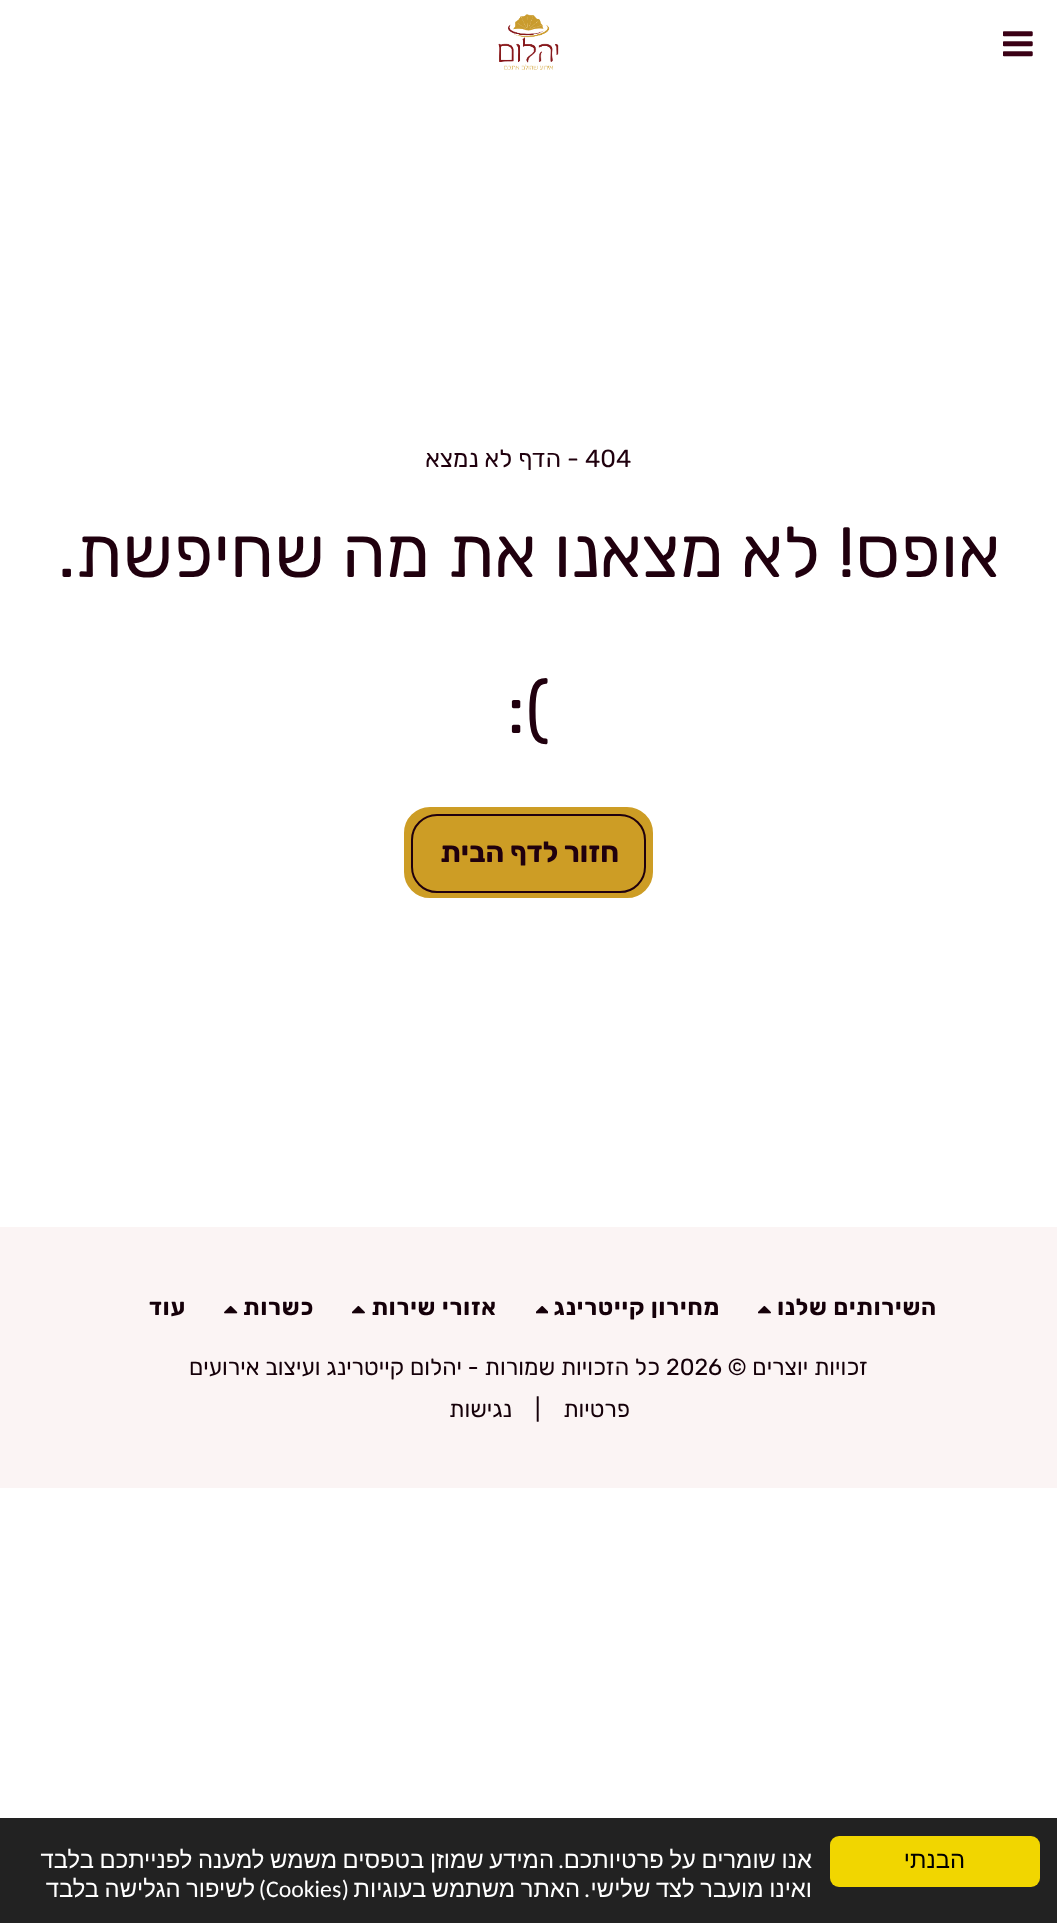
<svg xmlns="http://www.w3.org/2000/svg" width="1057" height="1923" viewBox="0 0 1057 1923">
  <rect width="100%" height="100%" fill="#fff"/>
  <image x="1003" y="31" width="30" height="26" href="img/1.png"/>
  <image x="498" y="14" width="61" height="56" href="img/2.png"/>
  <rect x="405" y="808" width="247" height="89" rx="25" fill="#cd9d25" stroke="#cd9d25" stroke-width="2"/>
  <rect x="412" y="815" width="233" height="77" rx="25" fill="none" stroke="#20000e" stroke-width="2"/>
  <path d="M0 1227h1057v261H0z" fill="#fbf4f4"/>
  <image x="758" y="1305" width="13" height="9" href="img/3.png"/>
  <image x="536" y="1306" width="12" height="8" href="img/4.png"/>
  <image x="352" y="1305" width="13" height="9" href="img/3.png"/>
  <image x="224" y="1305" width="14" height="9" href="img/5.png"/>
  <path d="M0 1818h1057v105H0z" fill="#222"/>
  <rect x="830" y="1836" width="210" height="51" rx="9" fill="#f1d600"/>
  <text x="585" y="467" font-family="Rubik" font-size="24.75" fill="#20000e">404</text>
  <text x="579" y="467" font-family="Rubik" font-size="24.75" direction="rtl" fill="#20000e">- הדף לא נמצא</text>
  <text x="1000" y="577" font-family="Rubik" font-size="71" direction="rtl" fill="#20000e">אופס! לא מצאנו את מה שחיפשת.</text>
  <text x="507" y="733" font-family="Rubik" font-size="71" fill="#20000e">:(</text>
  <text x="619" y="862" font-family="Rubik" font-size="29" font-weight="bold" direction="rtl" fill="#20000e">חזור לדף הבית</text>
  <g font-family="Rubik" font-size="23.25" font-weight="bold" letter-spacing="0.9" direction="rtl" fill="#150009">
    <text x="937" y="1315">השירותים שלנו</text>
    <text x="720" y="1315">מחירון קייטרינג</text>
    <text x="497" y="1315">אזורי שירות</text>
    <text x="314" y="1315">כשרות</text>
    <text x="186" y="1315">עוד</text>
  </g>
  <text x="868" y="1375" font-family="Rubik" font-size="23.25" direction="rtl" fill="#150009">זכויות יוצרים ©</text>
  <text x="666" y="1375" font-family="Rubik" font-size="23.25" fill="#150009">2026</text>
  <g font-family="Rubik" font-size="23.25" direction="rtl" fill="#150009">
    <text x="660" y="1375">כל הזכויות שמורות -</text>
    <text x="462" y="1375">יהלום קייטרינג ועיצוב אירועים</text>
    <text x="630" y="1417">פרטיות</text>
  </g>
  <text x="535" y="1417" font-family="Rubik" font-size="23.25" fill="#150009">|</text>
  <text x="512" y="1417" font-family="Rubik" font-size="23.25" direction="rtl" fill="#150009">נגישות</text>
  <text x="965" y="1868" font-family="Liberation Sans" font-size="23.8" direction="rtl" fill="#000">הבנתי</text>
  <text x="812" y="1868" word-spacing="-1" font-family="Liberation Sans" font-size="23.8" direction="rtl" fill="#fff">אנו שומרים על פרטיותכם</text>
  <text x="564" y="1868" font-family="Carlito" font-size="23.8" direction="rtl" fill="#fff">.</text>
  <g font-family="Liberation Sans" font-size="23.8" direction="rtl" fill="#fff">
    <text x="554" y="1868" word-spacing="-1">המידע שמוזן בטפסים משמש למענה לפנייתכם בלבד</text>
    <text x="812" y="1897" word-spacing="-1">ואינו מועבר לצד שלישי</text>
  </g>
  <text x="590" y="1897" font-family="Carlito" font-size="23.8" direction="rtl" fill="#fff">.</text>
  <text x="580" y="1897" word-spacing="-1" font-family="Liberation Sans" font-size="23.8" direction="rtl" fill="#fff">האתר משתמש בעוגיות</text>
  <text x="349" y="1897" font-family="Carlito" font-size="23.8" direction="rtl" fill="#fff">(</text>
  <text x="266" y="1897" font-family="Carlito" font-size="23.8" fill="#fff">Cookies</text>
  <text x="266" y="1897" font-family="Carlito" font-size="23.8" direction="rtl" fill="#fff">)</text>
  <text x="255" y="1897" word-spacing="-1" font-family="Liberation Sans" font-size="23.8" direction="rtl" fill="#fff">לשיפור הגלישה בלבד</text>
</svg>
